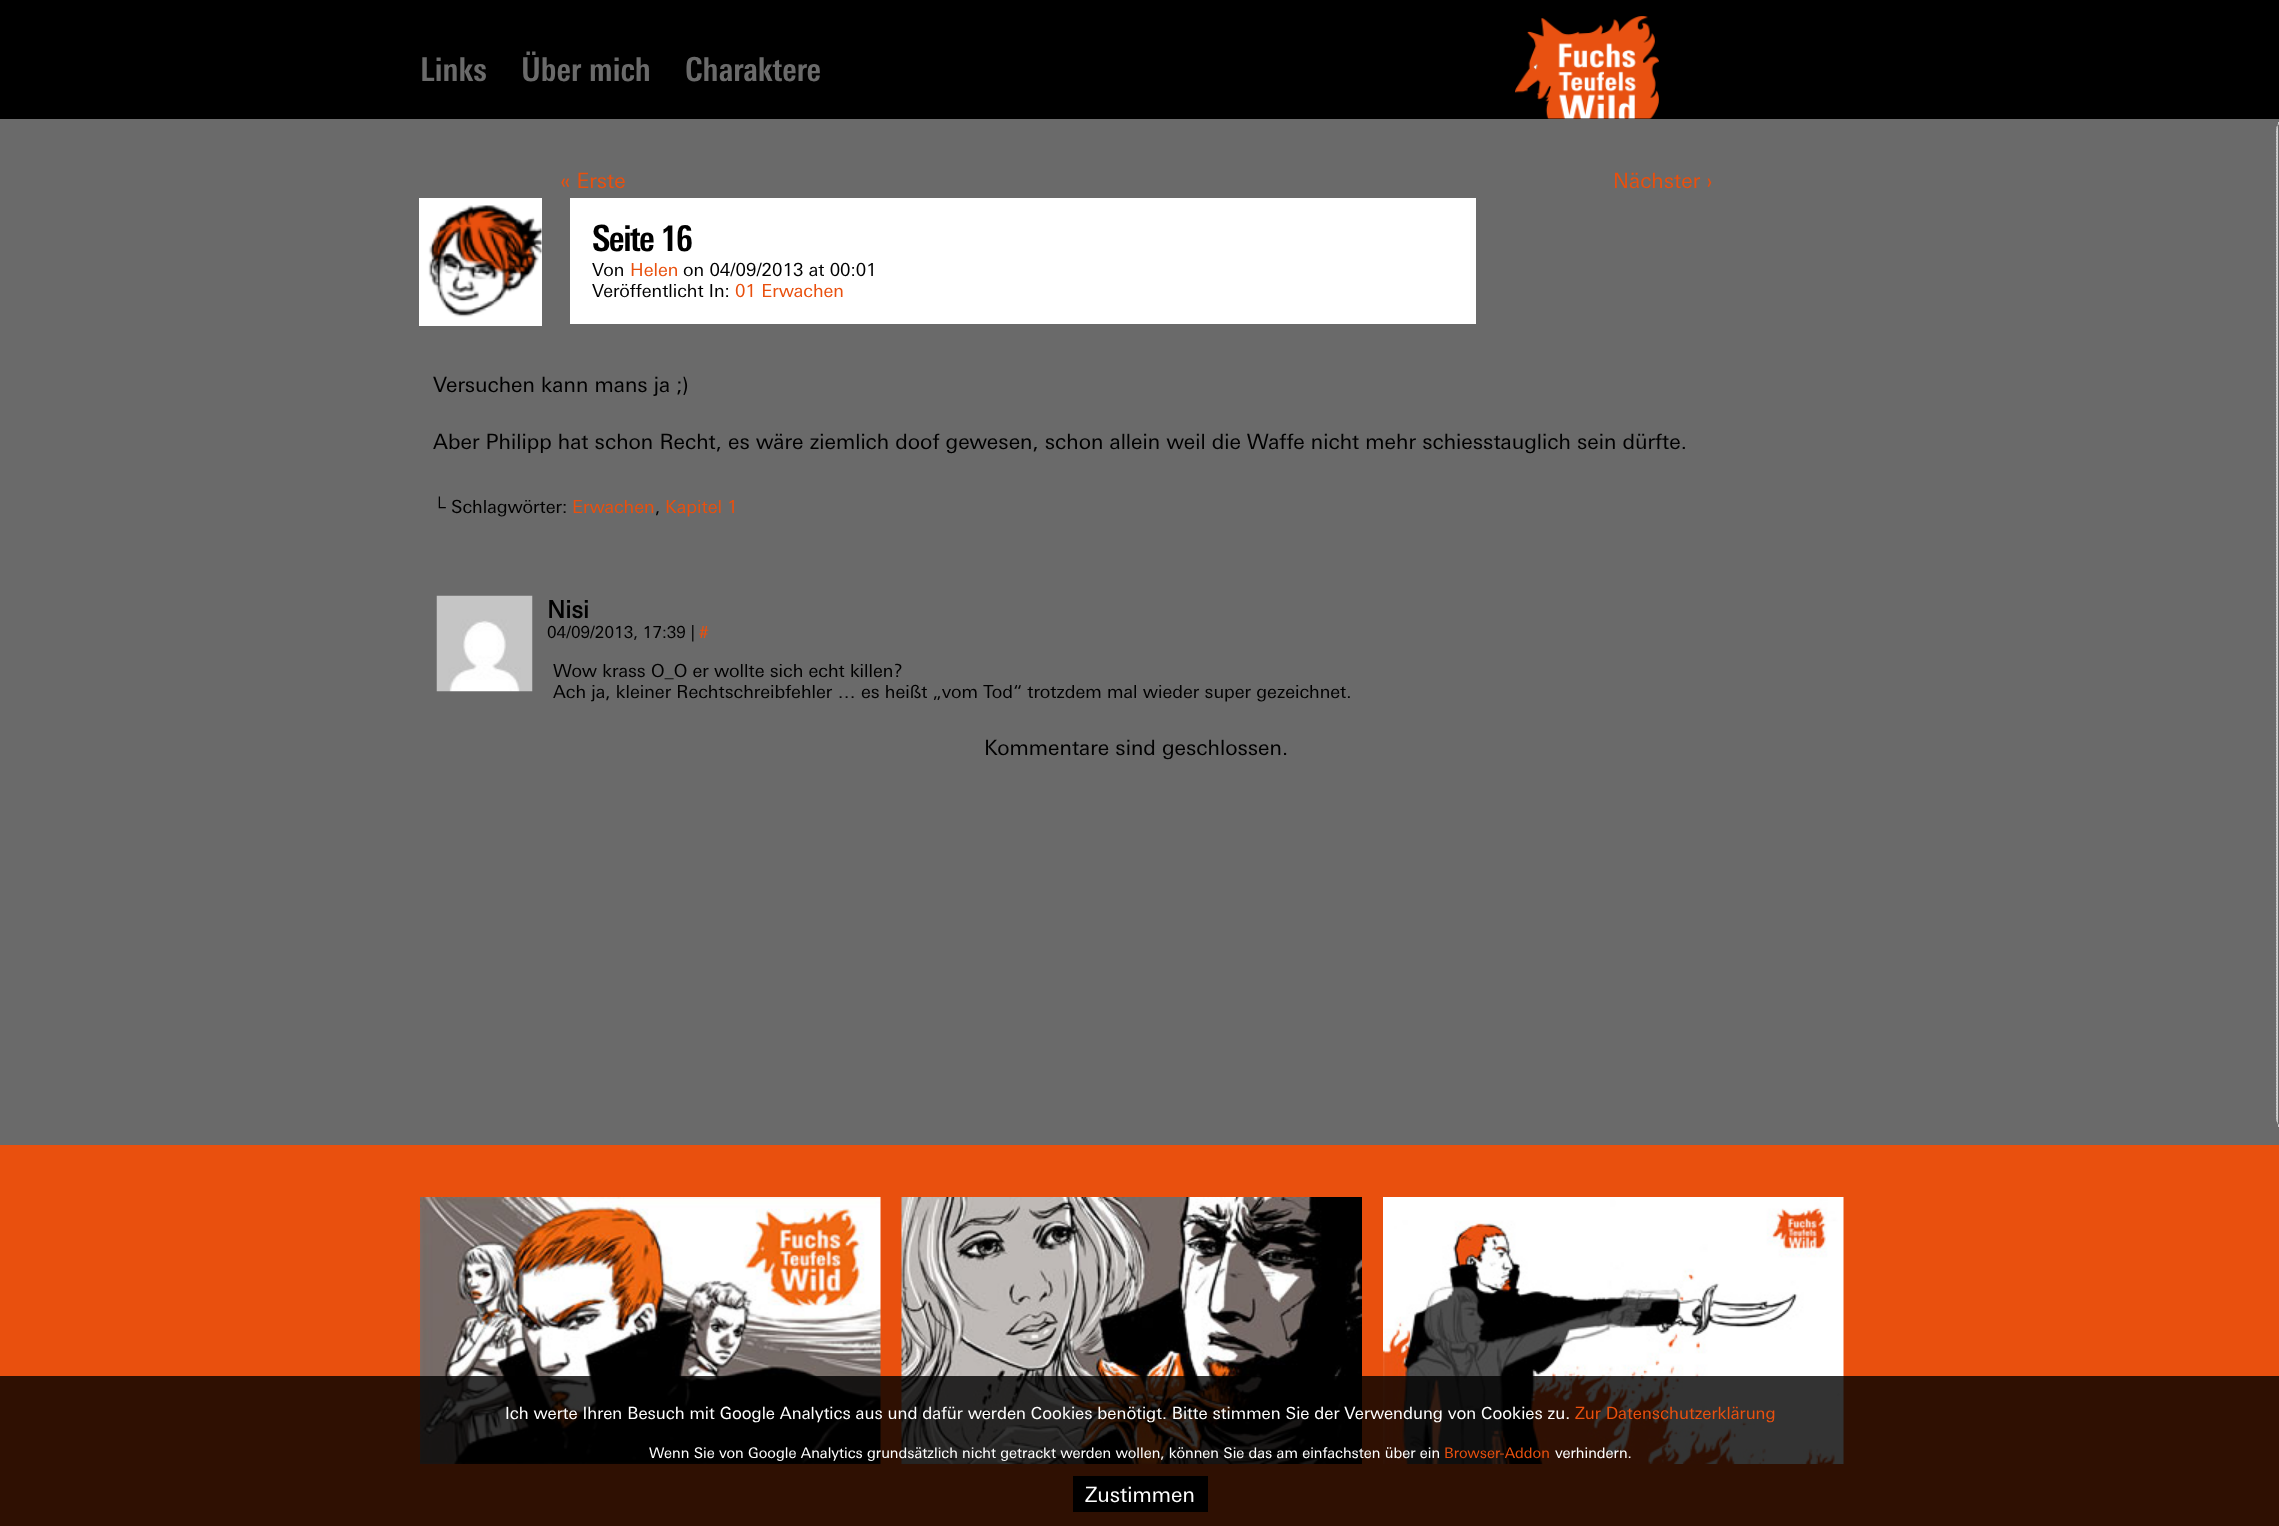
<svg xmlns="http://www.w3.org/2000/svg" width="2279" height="1526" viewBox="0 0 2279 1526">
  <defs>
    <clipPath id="clip1"><path d="M2276 122h2v1020H2276z"/></clipPath>
  </defs>
  <rect width="100%" height="100%" fill="#e9500e"/>
  <path d="M0 0h2279v119H0z" fill="#000"/>
  <image x="1515" y="16" width="144" height="103" href="img/1.png"/>
  <path d="M0 119h2279v1026H0z" fill="#6a6a6a"/>
  <path d="M419 198h123v128H419z" fill="#fff"/>
  <image x="428" y="205" width="114" height="112" href="img/2.png"/>
  <path d="M570 198h906v126H570z" fill="#fff"/>
  <image x="436" y="595" width="97" height="97" href="img/3.png"/>
  <path d="M2285 122H2278V1127H2285C2280 1127 2276 1123 2276 1118V131C2276 126 2280 122 2285 122Z" fill="#ccc"/>
  <g clip-path="url(#clip1)">
    <path d="M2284.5 122C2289 122 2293 126 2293 130.5V1117.5C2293 1122 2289 1126 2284.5 1126C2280 1126 2276 1122 2276 1117.5V130.5C2276 126 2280 122 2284.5 122Z" fill="none" stroke="#aaa" stroke-width="1.5" stroke-dasharray="1.5 1.5"/>
  </g>
  <image x="420" y="1197" width="461" height="267" href="img/4.png"/>
  <image x="901" y="1197" width="461" height="267" href="img/5.png"/>
  <image x="1383" y="1197" width="461" height="267" href="img/6.png"/>
  <path d="M0 1376h2279v150H0z" fill="#000000cc"/>
  <path d="M1073 1476h135v36H1073z" fill="#000"/>
  <g font-family="'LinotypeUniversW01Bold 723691'" font-size="33" font-weight="bold" fill="#6a6a6a">
    <text x="420" y="81">Links</text>
    <text x="521" y="81">Über mich</text>
    <text x="685" y="81">Charaktere</text>
  </g>
  <g font-family="'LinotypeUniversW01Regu'" font-size="21" fill="#e9500e">
    <text x="560" y="188">« Erste</text>
    <text x="1613" y="188">Nächster ›</text>
  </g>
  <text x="592" y="251" font-family="'LinotypeUniversW01Bold 723691'" font-size="36" font-weight="bold" letter-spacing="-1.5" fill="#000">Seite 16</text>
  <text x="592" y="276" font-family="'LinotypeUniversW01Regu'" font-size="18" fill="#000">Von</text>
  <text x="630" y="276" font-family="'LinotypeUniversW01Regu'" font-size="18" fill="#e9500e">Helen</text>
  <g font-family="'LinotypeUniversW01Regu'" font-size="18" fill="#000">
    <text x="683" y="276">on 04/09/2013 at 00:01</text>
    <text x="592" y="297">Veröffentlicht In:</text>
  </g>
  <text x="735" y="297" font-family="'LinotypeUniversW01Regu'" font-size="18" fill="#e9500e">01 Erwachen</text>
  <g font-family="'LinotypeUniversW01Regu'" font-size="21" fill="#000">
    <text x="433" y="392">Versuchen kann mans ja ;)</text>
    <text x="433" y="449">Aber Philipp hat schon Recht, es wäre ziemlich doof gewesen, schon allein weil die Waffe nicht mehr schiesstauglich sein dürfte.</text>
  </g>
  <text x="433" y="513" font-family="Liberation Sans" font-size="18" fill="#000">└</text>
  <text x="451" y="513" font-family="'LinotypeUniversW01Regu'" font-size="18" fill="#000">Schlagwörter:</text>
  <text x="572" y="513" font-family="'LinotypeUniversW01Regu'" font-size="18" fill="#e9500e">Erwachen</text>
  <text x="655" y="513" font-family="'LinotypeUniversW01Regu'" font-size="18" fill="#000">,</text>
  <text x="665" y="513" font-family="'LinotypeUniversW01Regu'" font-size="18" fill="#e9500e">Kapitel 1</text>
  <text x="547" y="618" font-family="'LinotypeUniversW01Regu'" font-size="24" font-weight="bold" fill="#000">Nisi</text>
  <text x="547" y="638" font-family="'LinotypeUniversW01Regu'" font-size="16.5" fill="#000">04/09/2013, 17:39 |</text>
  <text x="699" y="638" font-family="'LinotypeUniversW01Regu'" font-size="16.5" fill="#e9500e">#</text>
  <g font-family="'LinotypeUniversW01Regu'" font-size="18" fill="#000">
    <text x="553" y="677">Wow krass O_O er wollte sich echt killen?</text>
    <text x="553" y="698">Ach ja, kleiner Rechtschreibfehler … es heißt „vom Tod“ trotzdem mal wieder super gezeichnet.</text>
  </g>
  <text x="984" y="755" font-family="'LinotypeUniversW01Regu'" font-size="21" fill="#000">Kommentare sind geschlossen.</text>
  <text x="505" y="1419" font-family="'LinotypeUniversW01Regu'" font-size="16.8" fill="#fff">Ich werte Ihren Besuch mit Google Analytics aus und dafür werden Cookies benötigt. Bitte stimmen Sie der Verwendung von Cookies zu.</text>
  <text x="1575" y="1419" font-family="'LinotypeUniversW01Regu'" font-size="16.8" fill="#e9500e">Zur Datenschutzerklärung</text>
  <text x="649" y="1458" font-family="'LinotypeUniversW01Regu'" font-size="14.7" fill="#fff">Wenn Sie von Google Analytics grundsätzlich nicht getrackt werden wollen, können Sie das am einfachsten über ein</text>
  <text x="1444" y="1458" font-family="'LinotypeUniversW01Regu'" font-size="14.7" fill="#e9500e">Browser-Addon</text>
  <text x="1555" y="1458" font-family="'LinotypeUniversW01Regu'" font-size="14.7" fill="#fff">verhindern.</text>
  <text x="1085" y="1502" font-family="'LinotypeUniversW01Regu'" font-size="21" fill="#fff">Zustimmen</text>
</svg>
